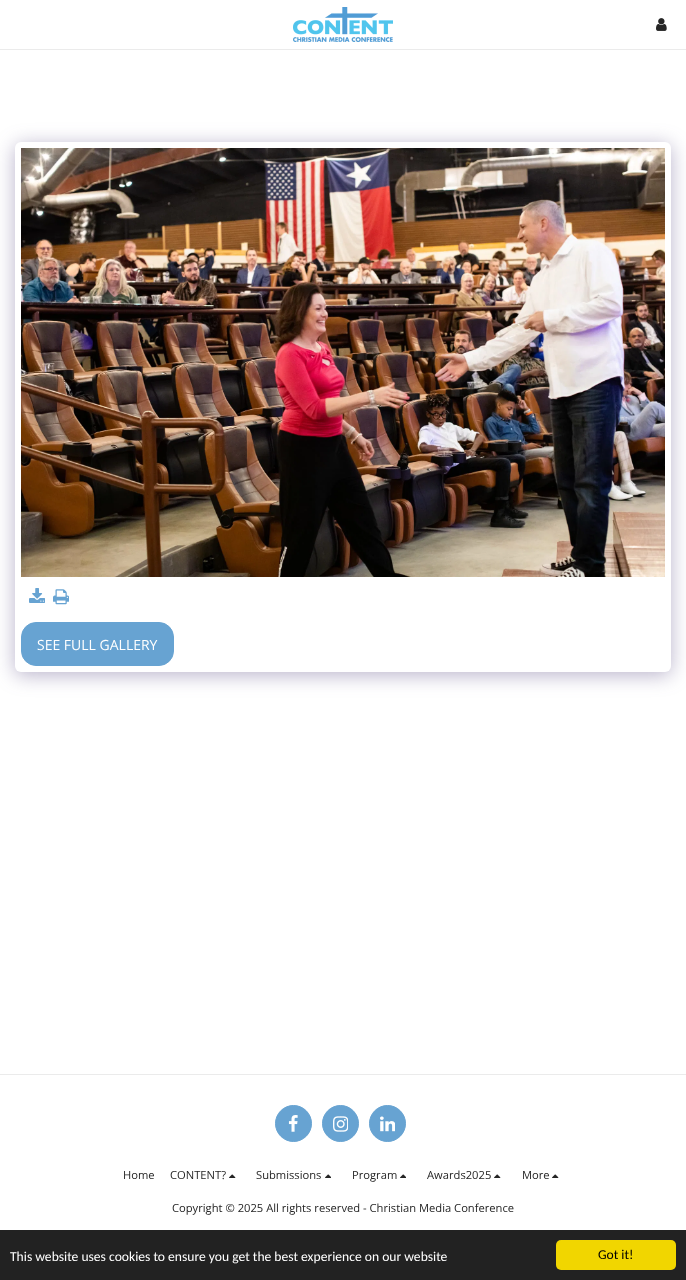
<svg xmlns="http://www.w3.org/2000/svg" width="686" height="1280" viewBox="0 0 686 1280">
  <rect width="100%" height="100%" fill="#fff"/>
  <path d="M0 49h686v1H0z" fill="#ebebeb"/>
  <image x="293" y="7" width="100" height="35" href="img/1.png"/>
  <image x="656" y="18" width="11" height="13" href="img/2.png"/>
  <rect x="15" y="145" width="656" height="530" rx="6" fill="#4d3f7a66" filter="blur(10px)"/>
  <rect x="15" y="142" width="656" height="530" rx="6" fill="#fff"/>
  <image x="21" y="148" width="644" height="429" href="img/3.png"/>
  <image x="29" y="588" width="16" height="15" href="img/4.png"/>
  <image x="53" y="589" width="16" height="16" href="img/5.png"/>
  <rect x="21.5" y="622.5" width="152" height="43" rx="14.5" fill="#67a3d2" stroke="#67a3d2"/>
  <path d="M0 1074h686v1H0z" fill="#ebebeb"/>
  <circle cx="293.5" cy="1123.5" r="18" fill="#67a3d2" stroke="#67a3d2"/>
  <image x="288" y="1115" width="10" height="17" href="img/6.png"/>
  <circle cx="340.5" cy="1123.5" r="18" fill="#67a3d2" stroke="#67a3d2"/>
  <image x="333" y="1116" width="15" height="16" href="img/7.png"/>
  <circle cx="387.5" cy="1123.5" r="18" fill="#67a3d2" stroke="#67a3d2"/>
  <image x="380" y="1116" width="15" height="16" href="img/8.png"/>
  <image x="229" y="1174" width="7" height="4" href="img/9.png"/>
  <image x="325" y="1174" width="6" height="4" href="img/10.png"/>
  <image x="400" y="1174" width="6" height="4" href="img/10.png"/>
  <image x="494" y="1174" width="7" height="4" href="img/9.png"/>
  <image x="552" y="1174" width="7" height="4" href="img/9.png"/>
  <path d="M0 1230h686v50H0z" fill="#222"/>
  <rect x="556" y="1240" width="120" height="30" rx="5" fill="#f1d600"/>
  <text x="37" y="650" font-family="Open Sans" font-size="14" fill="#fff">SEE FULL GALLERY</text>
  <g font-family="Open Sans" font-size="11.2" fill="#252525">
    <text x="123" y="1179">Home</text>
    <text x="170" y="1179">CONTENT?</text>
    <text x="256" y="1179">Submissions</text>
    <text x="352" y="1179">Program</text>
    <text x="427" y="1179">Awards2025</text>
    <text x="522" y="1179">More</text>
    <text x="172" y="1212">Copyright © 2025 All rights reserved - Christian Media Conference</text>
  </g>
  <text x="10" y="1261" font-family="Carlito" font-size="13.6" fill="#fff">This website uses cookies to ensure you get the best experience on our website</text>
  <text x="598" y="1259" font-family="Carlito" font-size="13.6" fill="#000">Got it!</text>
</svg>
